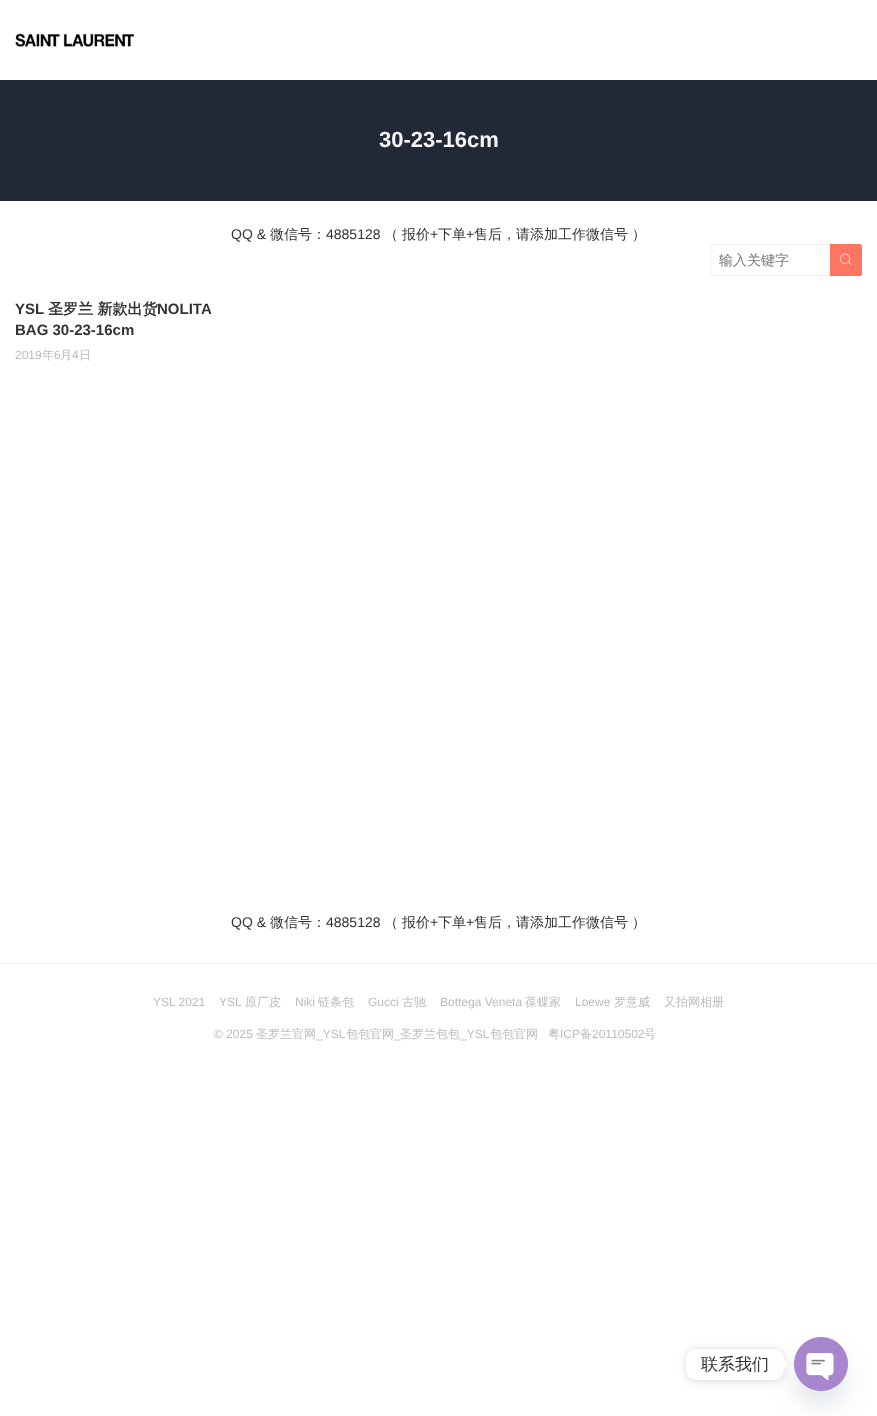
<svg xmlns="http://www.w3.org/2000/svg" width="877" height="1416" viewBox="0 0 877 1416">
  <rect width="100%" height="100%" fill="#fff"/>
  <path d="M0 80h877v121H0z" fill="#202935"/>
  <image x="15" y="33" width="119" height="15" href="img/1.png"/>
  <path d="M711 244h119v1H711z" fill="#eee"/>
  <path d="M711 275h119v1H711z" fill="#eee"/>
  <path d="M710 245h1v30H710z" fill="#eee"/>
  <path d="M830 244H860C861 244 862 245 862 246V274C862 275 861 276 860 276H830Z" fill="#ff7562"/>
  <image x="840" y="253" width="12" height="13" href="img/2.png"/>
  <path d="M0 963h877v1H0z" fill="#eee"/>
  <rect x="686" y="1350" width="98" height="31" rx="10" fill="#00000026" filter="blur(4px)"/>
  <rect x="686" y="1349" width="98" height="31" rx="10" fill="#fff"/>
  <path d="M784 1369.5V1359.5L789 1364.5Z" fill="#fff"/>
  <rect x="794" y="1353" width="54" height="54" rx="27" fill="#49687e29" filter="blur(12px)"/>
  <image x="794" y="1337" width="54" height="54" href="img/3.png"/>
  <text x="379" y="147" font-family="Liberation Sans" font-size="22" font-weight="bold" fill="#f6f6f6">30-23-16cm</text>
  <text x="231" y="239" font-family="Liberation Sans" font-size="14" fill="#333">QQ &amp;</text>
  <text x="270" y="239" font-family="WenQuanYi Zen Hei" font-size="14" font-weight="500" fill="#333">微信号：</text>
  <text x="326" y="239" font-family="Liberation Sans" font-size="14" fill="#333">4885128</text>
  <g font-family="WenQuanYi Zen Hei" font-size="14" font-weight="500" fill="#333">
    <text x="384" y="239">（</text>
    <text x="402" y="239">报价</text>
  </g>
  <text x="430" y="239" font-family="Liberation Sans" font-size="14" fill="#333">+</text>
  <text x="438" y="239" font-family="WenQuanYi Zen Hei" font-size="14" font-weight="500" fill="#333">下单</text>
  <text x="466" y="239" font-family="Liberation Sans" font-size="14" fill="#333">+</text>
  <g font-family="WenQuanYi Zen Hei" font-size="14" font-weight="500" fill="#333">
    <text x="474" y="239">售后，请添加工作微信号</text>
    <text x="632" y="239">）</text>
  </g>
  <text x="15" y="314" font-family="Liberation Sans" font-size="15" font-weight="bold" fill="#333">YSL</text>
  <text x="48" y="314" font-family="WenQuanYi Zen Hei" font-size="15" font-weight="bold" fill="#333">圣罗兰 新款出货</text>
  <g font-family="Liberation Sans" font-size="15" font-weight="bold" fill="#333">
    <text x="157" y="314">NOLITA</text>
    <text x="15" y="335">BAG 30-23-16cm</text>
  </g>
  <text x="15" y="359" font-family="Liberation Sans" font-size="12" fill="#bbb">2019</text>
  <text x="42" y="359" font-family="WenQuanYi Zen Hei" font-size="12" font-weight="500" fill="#bbb">年</text>
  <text x="54" y="359" font-family="Liberation Sans" font-size="12" fill="#bbb">6</text>
  <text x="60" y="359" font-family="WenQuanYi Zen Hei" font-size="12" font-weight="500" fill="#bbb">月</text>
  <text x="72" y="359" font-family="Liberation Sans" font-size="12" fill="#bbb">4</text>
  <text x="79" y="359" font-family="WenQuanYi Zen Hei" font-size="12" font-weight="500" fill="#bbb">日</text>
  <text x="231" y="927" font-family="Liberation Sans" font-size="14" fill="#333">QQ &amp;</text>
  <text x="270" y="927" font-family="WenQuanYi Zen Hei" font-size="14" font-weight="500" fill="#333">微信号：</text>
  <text x="326" y="927" font-family="Liberation Sans" font-size="14" fill="#333">4885128</text>
  <g font-family="WenQuanYi Zen Hei" font-size="14" font-weight="500" fill="#333">
    <text x="384" y="927">（</text>
    <text x="402" y="927">报价</text>
  </g>
  <text x="430" y="927" font-family="Liberation Sans" font-size="14" fill="#333">+</text>
  <text x="438" y="927" font-family="WenQuanYi Zen Hei" font-size="14" font-weight="500" fill="#333">下单</text>
  <text x="466" y="927" font-family="Liberation Sans" font-size="14" fill="#333">+</text>
  <g font-family="WenQuanYi Zen Hei" font-size="14" font-weight="500" fill="#333">
    <text x="474" y="927">售后，请添加工作微信号</text>
    <text x="632" y="927">）</text>
  </g>
  <text x="719" y="265" font-family="WenQuanYi Zen Hei" font-size="14" font-weight="500" fill="#757575">输入关键字</text>
  <g font-family="Liberation Sans" font-size="12" fill="#bbb">
    <text x="153" y="1006">YSL 2021</text>
    <text x="219" y="1006">YSL</text>
  </g>
  <text x="245" y="1006" font-family="WenQuanYi Zen Hei" font-size="12" font-weight="500" fill="#bbb">原厂皮</text>
  <text x="295" y="1006" font-family="Liberation Sans" font-size="12" fill="#bbb">Niki</text>
  <text x="318" y="1006" font-family="WenQuanYi Zen Hei" font-size="12" font-weight="500" fill="#bbb">链条包</text>
  <text x="368" y="1006" font-family="Liberation Sans" font-size="12" fill="#bbb">Gucci</text>
  <text x="402" y="1006" font-family="WenQuanYi Zen Hei" font-size="12" font-weight="500" fill="#bbb">古驰</text>
  <text x="440" y="1006" font-family="Liberation Sans" font-size="12" fill="#bbb">Bottega Veneta</text>
  <text x="525" y="1006" font-family="WenQuanYi Zen Hei" font-size="12" font-weight="500" fill="#bbb">葆蝶家</text>
  <text x="575" y="1006" font-family="Liberation Sans" font-size="12" fill="#bbb">Loewe</text>
  <g font-family="WenQuanYi Zen Hei" font-size="12" font-weight="500" fill="#bbb">
    <text x="614" y="1006">罗意威</text>
    <text x="664" y="1006">又拍网相册</text>
  </g>
  <text x="214" y="1038" font-family="Liberation Sans" font-size="12" fill="#bbb">© 2025</text>
  <text x="256" y="1038" font-family="WenQuanYi Zen Hei" font-size="12" font-weight="500" fill="#bbb">圣罗兰官网</text>
  <text x="316" y="1038" font-family="Liberation Sans" font-size="12" fill="#bbb">_YSL</text>
  <g font-family="WenQuanYi Zen Hei" font-size="12" font-weight="500" fill="#bbb">
    <text x="346" y="1038">包包官网</text>
    <text x="548" y="1038">粤</text>
  </g>
  <text x="560" y="1038" font-family="Liberation Sans" font-size="12" fill="#bbb">ICP</text>
  <text x="580" y="1038" font-family="WenQuanYi Zen Hei" font-size="12" font-weight="500" fill="#bbb">备</text>
  <text x="592" y="1038" font-family="Liberation Sans" font-size="12" fill="#bbb">20110502</text>
  <text x="644" y="1038" font-family="WenQuanYi Zen Hei" font-size="12" font-weight="500" fill="#bbb">号</text>
  <text x="394" y="1038" font-family="Liberation Sans" font-size="12" fill="#bbb">_</text>
  <text x="400" y="1038" font-family="WenQuanYi Zen Hei" font-size="12" font-weight="500" fill="#bbb">圣罗兰包包</text>
  <text x="460" y="1038" font-family="Liberation Sans" font-size="12" fill="#bbb">_YSL</text>
  <text x="490" y="1038" font-family="WenQuanYi Zen Hei" font-size="12" font-weight="500" fill="#bbb">包包官网</text>
  <text x="701" y="1370" font-family="WenQuanYi Zen Hei" font-size="17" font-weight="500" fill="#333">联系我们</text>
</svg>
